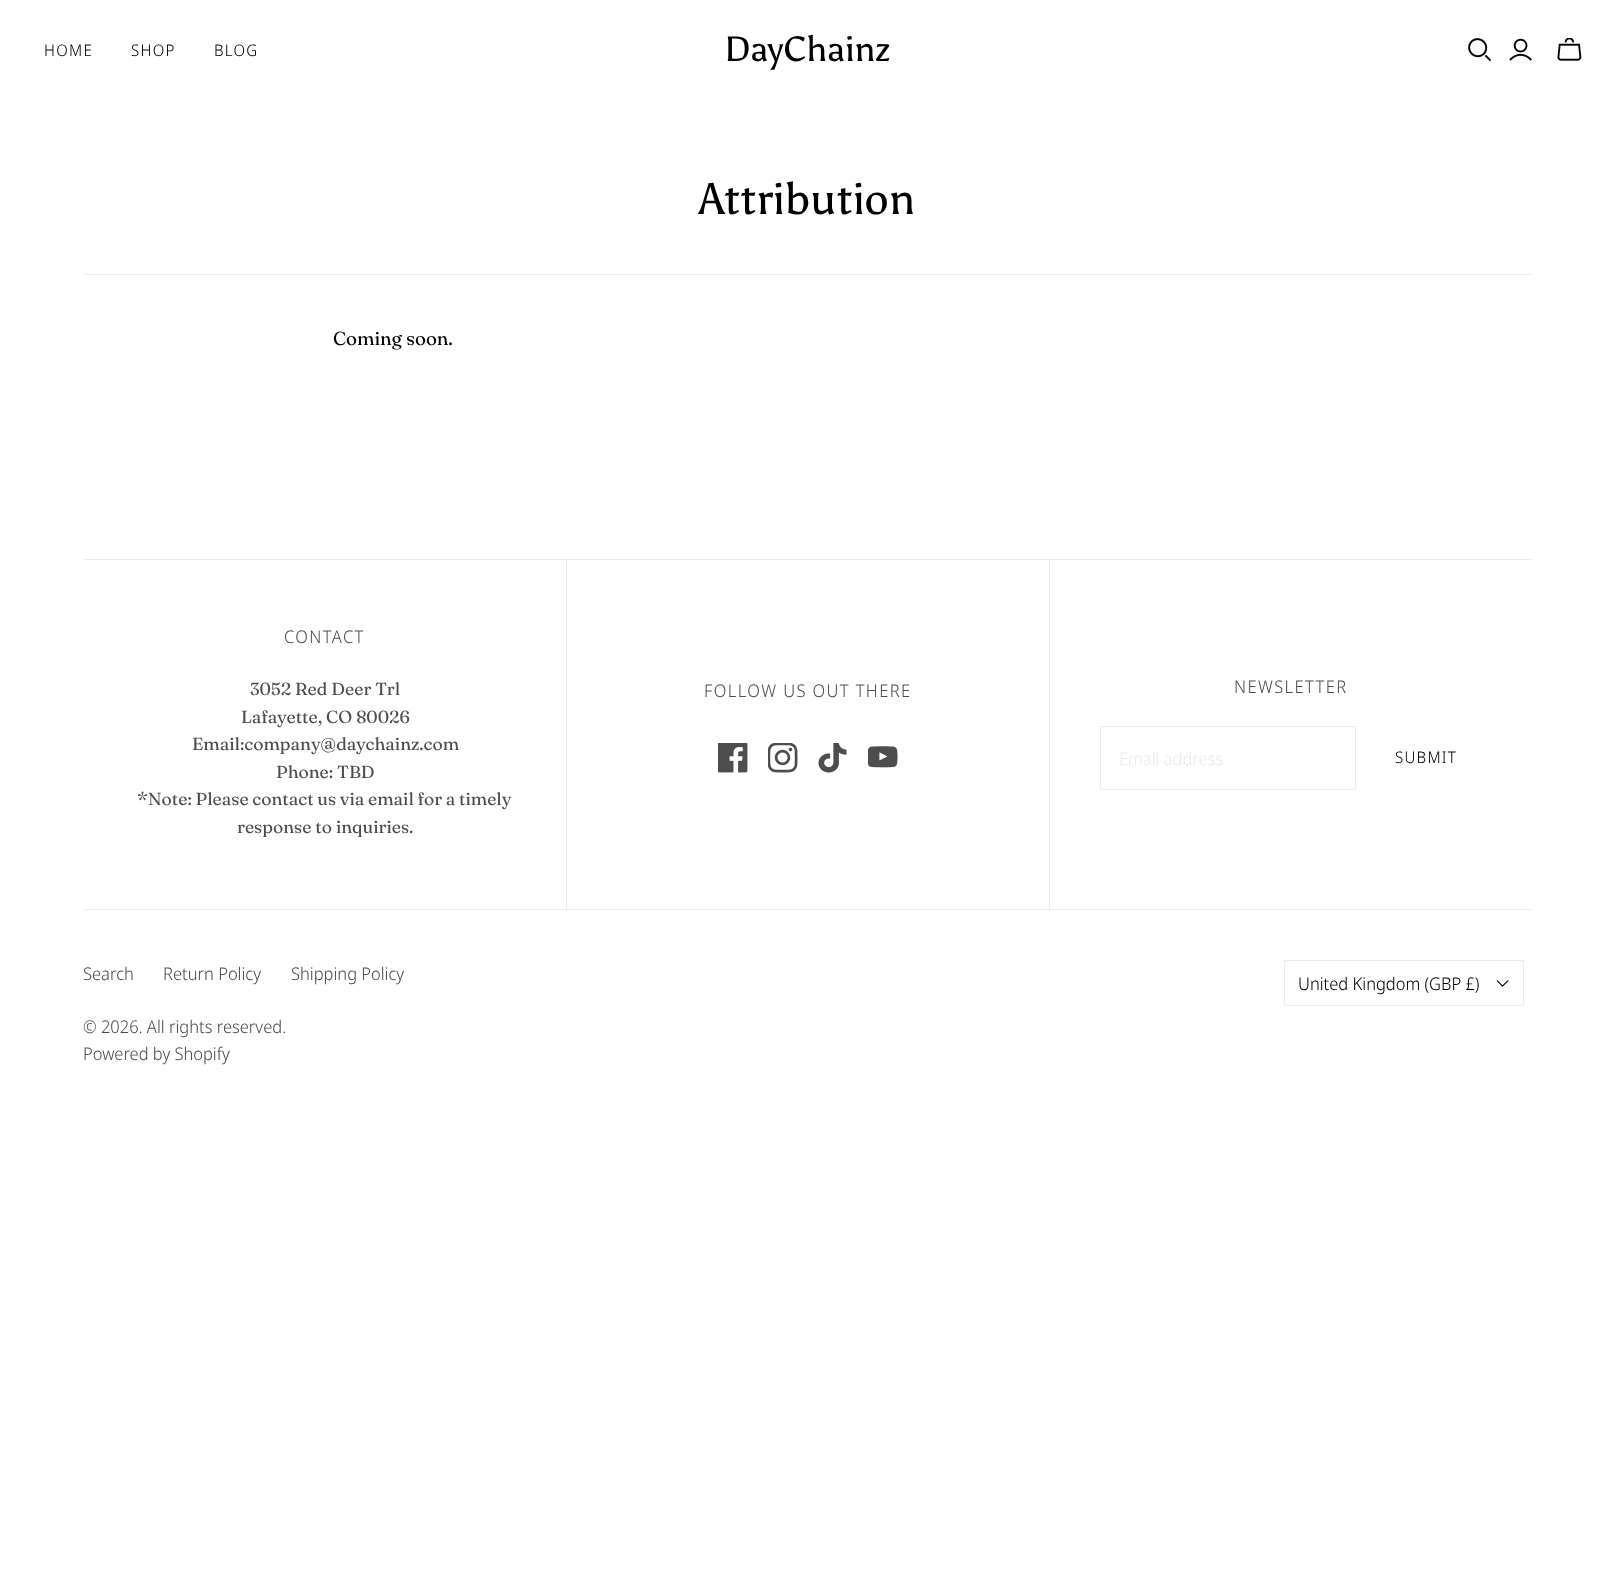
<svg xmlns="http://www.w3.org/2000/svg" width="1614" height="1578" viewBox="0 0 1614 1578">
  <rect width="100%" height="100%" fill="#fff"/>
  <image x="1468" y="38" width="24" height="24" href="img/1.png"/>
  <image x="1509" y="38" width="23" height="23" href="img/2.png"/>
  <image x="1557" y="38" width="25" height="23" href="img/3.png"/>
  <path d="M84 274h1447v1H84z" fill="#ebebeb"/>
  <path d="M84 559h1447v1H84z" fill="#ebebeb"/>
  <path d="M84 909h1447v1H84z" fill="#ebebeb"/>
  <path d="M566 560h1v349H566z" fill="#ebebeb"/>
  <image x="718" y="743" width="30" height="30" href="img/4.png"/>
  <image x="768" y="743" width="30" height="30" href="img/5.png"/>
  <image x="818" y="743" width="29" height="30" href="img/6.png"/>
  <image x="868" y="746" width="30" height="22" href="img/7.png"/>
  <path d="M1049 560h1v349H1049z" fill="#ebebeb"/>
  <path d="M1100.5 726.5h255v63H1100.5z" fill="none" stroke="#ebebeb"/>
  <path d="M1284.5 960.5h239v45H1284.5z" fill="none" stroke="#ebebeb"/>
  <image x="1496" y="980" width="13" height="7" href="img/8.png"/>
  <g font-family="Noto Sans Display" font-size="16" font-weight="300" letter-spacing="1.25" fill="#000">
    <text x="44" y="56">HOME</text>
    <text x="131" y="56">SHOP</text>
    <text x="214" y="56">BLOG</text>
  </g>
  <text x="724" y="61" font-family="Asul" font-size="35" fill="#000">DayChainz</text>
  <text x="699" y="214" font-family="Asul" font-size="43.75" fill="#000">Attribution</text>
  <text x="333" y="345" font-family="Fraunces" font-size="18.75" fill="#000">Coming soon.</text>
  <text x="284" y="643" font-family="Noto Sans Display" font-size="17.5" font-weight="300" letter-spacing="1.4" fill="#4d4d4d">CONTACT</text>
  <g font-family="'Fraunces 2'" font-size="17.5" fill="#4d4d4d">
    <text x="250" y="695">3052 Red Deer Trl</text>
    <text x="241" y="723">Lafayette, CO 80026</text>
    <text x="192" y="750">Email:company@daychainz.com</text>
    <text x="276" y="778">Phone: TBD</text>
    <text x="137" y="805" word-spacing="-0.25">*Note: Please contact us via email for a timely</text>
    <text x="237" y="833">response to inquiries.</text>
  </g>
  <g font-family="Noto Sans Display" font-size="17.5" font-weight="300" letter-spacing="1.4" fill="#4d4d4d">
    <text x="704" y="697">FOLLOW US OUT THERE</text>
    <text x="1234" y="693">NEWSLETTER</text>
  </g>
  <text x="1119" y="765" font-family="Noto Sans Display" font-size="17.5" font-weight="300" fill="#ebebeb">Email address</text>
  <text x="1395" y="763" font-family="Noto Sans Display" font-size="16" font-weight="300" letter-spacing="1.25" fill="#000">SUBMIT</text>
  <g font-family="Noto Sans Display" font-size="17.5" font-weight="300" fill="#4d4d4d">
    <text x="83" y="980">Search</text>
    <text x="163" y="980">Return Policy</text>
    <text x="291" y="980">Shipping Policy</text>
    <text x="83" y="1033">© 2026. All rights reserved.</text>
    <text x="83" y="1060">Powered by Shopify</text>
  </g>
  <text x="1298" y="990" font-family="Noto Sans Display" font-size="17.5" font-weight="300" fill="#000">United Kingdom (GBP £)</text>
</svg>
